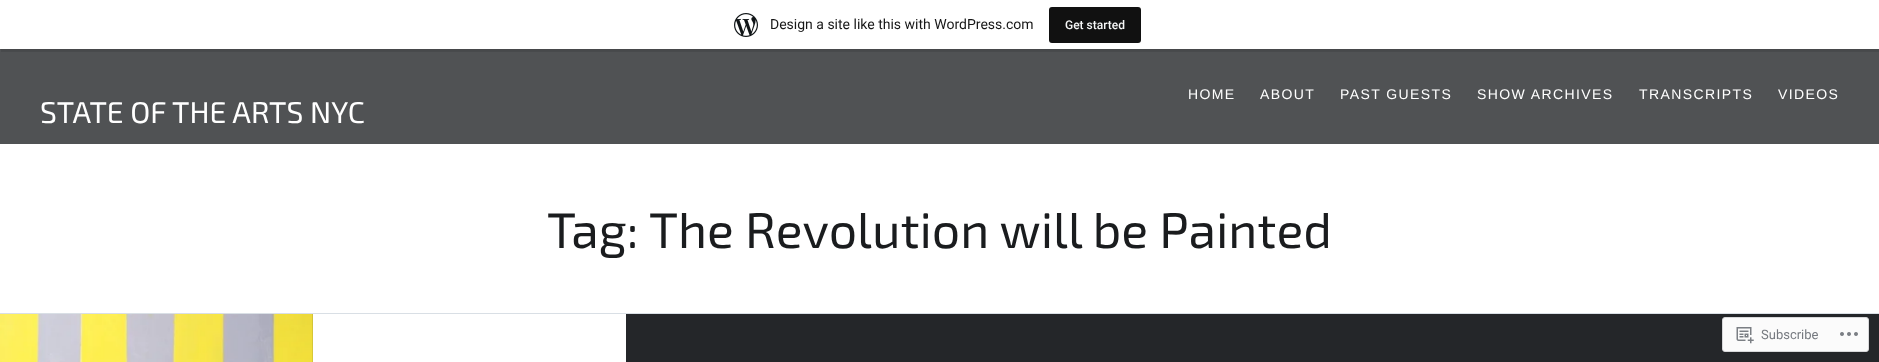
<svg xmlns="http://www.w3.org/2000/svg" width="1879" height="362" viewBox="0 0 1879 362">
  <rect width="100%" height="100%" fill="#fff"/>
  <path d="M0 49h1879v95H0z" fill="#505254"/>
  <path d="M0 1h1879v49H0z" fill="#0000000d" filter="blur(1px)"/>
  <path d="M1 49V52H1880V3H1879V49Z" fill="#00000014"/>
  <path d="M0 0h1879v49H0z" fill="#fff"/>
  <image x="734" y="13" width="24" height="24" href="img/1.png"/>
  <rect x="1049" y="7" width="92" height="36" rx="3" fill="#111"/>
  <path d="M312 314h1567v48H312z" fill="#242629"/>
  <path d="M0 313h1879v1H0z" fill="#d9dfe5"/>
  <image x="0" y="314" width="313" height="48" href="img/2.png"/>
  <path d="M313 314h313v48H313z" fill="#fff"/>
  <rect x="1722.5" y="317.5" width="146" height="34" rx="2.5" fill="#fbfbfb" stroke="#d8d8da"/>
  <image x="1736" y="327" width="18" height="17" href="img/3.png"/>
  <image x="1840" y="332" width="18" height="4" href="img/4.png"/>
  <text x="770" y="29" font-family="Roboto" font-size="14" fill="#171717">Design a site like this with WordPress.com</text>
  <text x="1065" y="29" font-family="Roboto" font-size="12" font-weight="500" fill="#f6f7f7">Get started</text>
  <g font-family="Arimo" font-size="14" letter-spacing="1.4" fill="#fff">
    <text x="1188" y="99">HOME</text>
    <text x="1260" y="99">ABOUT</text>
    <text x="1340" y="99">PAST GUESTS</text>
    <text x="1477" y="99">SHOW ARCHIVES</text>
    <text x="1639" y="99">TRANSCRIPTS</text>
    <text x="1778" y="99">VIDEOS</text>
  </g>
  <text x="40" y="123" font-family="'Exo 2'" font-size="30" fill="#fff">STATE OF THE ARTS NYC</text>
  <g font-family="'Exo 2'" font-size="50" fill="#1a1c1e">
    <text x="547" y="248">Tag:</text>
    <text x="649" y="248">The Revolution will be Painted</text>
  </g>
  <text x="1761" y="339" font-family="Roboto" font-size="13" fill="#767a80">Subscribe</text>
</svg>
